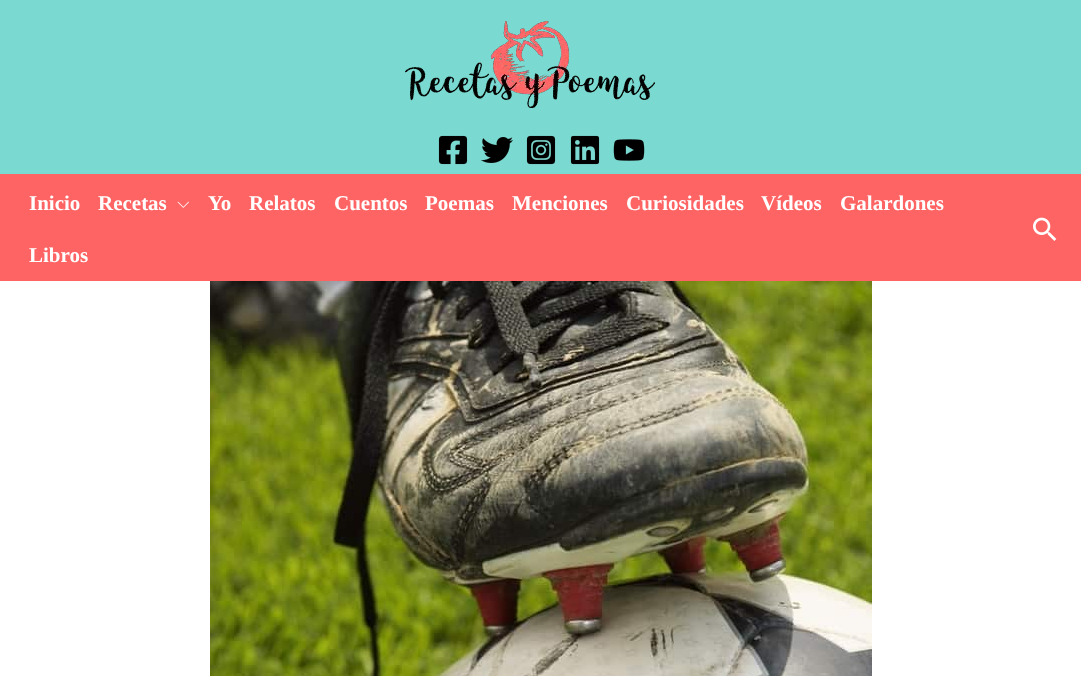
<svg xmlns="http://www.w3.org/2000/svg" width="1081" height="676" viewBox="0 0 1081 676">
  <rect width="100%" height="100%" fill="#fff"/>
  <path d="M0 0h1081v174H0z" fill="#7ad9d0"/>
  <image x="405" y="21" width="250" height="87" href="img/1.png"/>
  <image x="438" y="135" width="30" height="30" href="img/2.png"/>
  <image x="481" y="137" width="32" height="26" href="img/3.png"/>
  <image x="526" y="135" width="30" height="30" href="img/4.png"/>
  <image x="570" y="135" width="30" height="30" href="img/5.png"/>
  <image x="613" y="139" width="32" height="22" href="img/6.png"/>
  <path d="M0 174h1081v107H0z" fill="#ff6464"/>
  <image x="177" y="201" width="12" height="7" href="img/7.png"/>
  <image x="1033" y="217" width="24" height="24" href="img/8.png"/>
  <image x="210" y="281" width="662" height="395" href="img/9.png"/>
  <g font-family="Liberation Serif" font-size="21" font-weight="bold" fill="#fff">
    <text x="29" y="210">Inicio</text>
    <text x="98" y="210">Recetas</text>
    <text x="208" y="210">Yo</text>
    <text x="249" y="210">Relatos</text>
    <text x="334" y="210">Cuentos</text>
    <text x="425" y="210">Poemas</text>
    <text x="512" y="210">Menciones</text>
    <text x="626" y="210">Curiosidades</text>
    <text x="761" y="210">Vídeos</text>
    <text x="840" y="210">Galardones</text>
    <text x="29" y="262">Libros</text>
  </g>
</svg>
